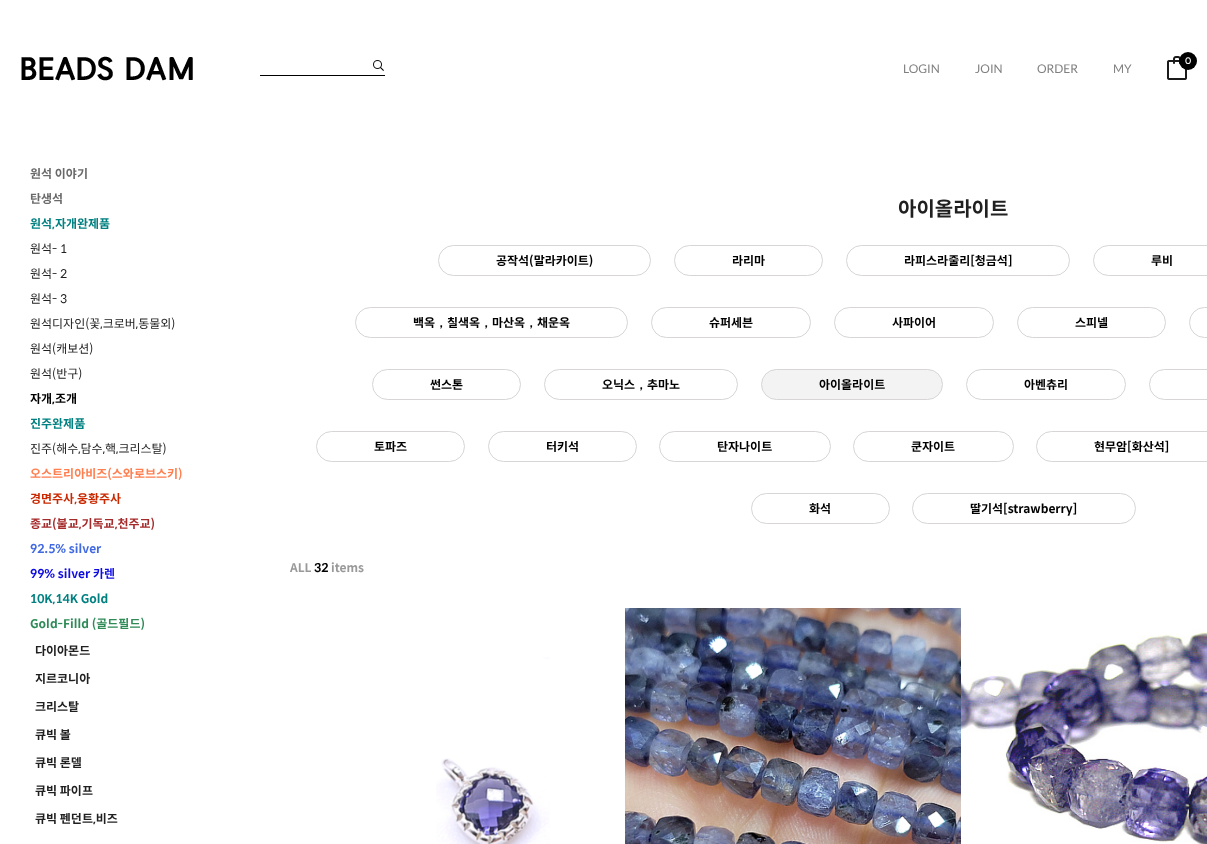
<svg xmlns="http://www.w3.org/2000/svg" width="1207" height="844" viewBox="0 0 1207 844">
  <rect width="100%" height="100%" fill="#fff"/>
  <path d="M260 75h125v1H260z" fill="#000"/>
  <image x="373" y="60" width="11" height="11" href="img/1.png"/>
  <image x="1167" y="56" width="20" height="24" href="img/2.png"/>
  <circle cx="1188" cy="61" r="9" fill="#000"/>
  <image x="21" y="56" width="172" height="25" href="img/3.png"/>
  <rect x="438.5" y="245.5" width="212" height="30" rx="15" fill="none" stroke="#d7d5d5"/>
  <rect x="674.5" y="245.5" width="148" height="30" rx="15" fill="none" stroke="#d7d5d5"/>
  <rect x="846.5" y="245.5" width="223" height="30" rx="15" fill="none" stroke="#d7d5d5"/>
  <rect x="1093.5" y="245.5" width="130" height="30" rx="15" fill="none" stroke="#d7d5d5"/>
  <rect x="355.5" y="307.5" width="272" height="30" rx="15" fill="none" stroke="#d7d5d5"/>
  <rect x="651.5" y="307.5" width="159" height="30" rx="15" fill="none" stroke="#d7d5d5"/>
  <rect x="834.5" y="307.5" width="159" height="30" rx="15" fill="none" stroke="#d7d5d5"/>
  <rect x="1017.5" y="307.5" width="148" height="30" rx="15" fill="none" stroke="#d7d5d5"/>
  <rect x="1189.5" y="307.5" width="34" height="30" rx="15" fill="none" stroke="#d7d5d5"/>
  <rect x="372.5" y="369.5" width="148" height="30" rx="15" fill="none" stroke="#d7d5d5"/>
  <rect x="544.5" y="369.5" width="193" height="30" rx="15" fill="none" stroke="#d7d5d5"/>
  <rect x="761.5" y="369.5" width="181" height="30" rx="15" fill="#f3f3f3" stroke="#d7d5d5"/>
  <rect x="966.5" y="369.5" width="159" height="30" rx="15" fill="none" stroke="#d7d5d5"/>
  <rect x="1149.5" y="369.5" width="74" height="30" rx="15" fill="none" stroke="#d7d5d5"/>
  <rect x="316.5" y="431.5" width="148" height="30" rx="15" fill="none" stroke="#d7d5d5"/>
  <rect x="488.5" y="431.5" width="148" height="30" rx="15" fill="none" stroke="#d7d5d5"/>
  <rect x="659.5" y="431.5" width="171" height="30" rx="15" fill="none" stroke="#d7d5d5"/>
  <rect x="853.5" y="431.5" width="160" height="30" rx="15" fill="none" stroke="#d7d5d5"/>
  <rect x="1036.5" y="431.5" width="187" height="30" rx="15" fill="none" stroke="#d7d5d5"/>
  <rect x="751.5" y="493.5" width="138" height="30" rx="15" fill="none" stroke="#d7d5d5"/>
  <rect x="912.5" y="493.5" width="223" height="30" rx="15" fill="none" stroke="#d7d5d5"/>
  <image x="436" y="657" width="114" height="187" href="img/4.png"/>
  <image x="625" y="608" width="336" height="236" href="img/5.png"/>
  <image x="961" y="608" width="246" height="236" href="img/6.png"/>
  <text x="1185" y="64" font-family="Josefin Sans" font-size="10" fill="#fff">0</text>
  <g font-family="Lato" font-size="12" fill="#808080">
    <text x="903" y="73">LOGIN</text>
    <text x="975" y="73">JOIN</text>
    <text x="1037" y="73">ORDER</text>
    <text x="1113" y="73">MY</text>
  </g>
  <g font-family="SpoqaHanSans" font-size="12" font-weight="bold" fill="#696969">
    <text x="30" y="178">원석 이야기</text>
    <text x="30" y="203">탄생석</text>
  </g>
  <text x="30" y="228" font-family="SpoqaHanSans" font-size="12" font-weight="bold" fill="#008080">원석,자개완제품</text>
  <g font-family="SpoqaHanSans" font-size="12" fill="#202020">
    <text x="30" y="253">원석- 1</text>
    <text x="30" y="278">원석- 2</text>
    <text x="30" y="303">원석- 3</text>
    <text x="30" y="328">원석디자인(꽃,크로버,동물외)</text>
    <text x="30" y="353">원석(캐보션)</text>
    <text x="30" y="378">원석(반구)</text>
  </g>
  <text x="30" y="403" font-family="SpoqaHanSans" font-size="12" font-weight="bold" fill="#000">자개,조개</text>
  <text x="30" y="428" font-family="SpoqaHanSans" font-size="12" font-weight="bold" fill="#008080">진주완제품</text>
  <text x="30" y="453" font-family="SpoqaHanSans" font-size="12" fill="#202020">진주(해수,담수,핵,크리스탈)</text>
  <text x="30" y="478" font-family="SpoqaHanSans" font-size="12" font-weight="bold" fill="#ff7f50">오스트리아비즈(스와로브스키)</text>
  <text x="30" y="503" font-family="SpoqaHanSans" font-size="12" font-weight="bold" fill="#c92800">경면주사,웅황주사</text>
  <text x="30" y="528" font-family="SpoqaHanSans" font-size="12" font-weight="bold" fill="#a52a2a">종교(불교,기독교,천주교)</text>
  <text x="30" y="553" font-family="SpoqaHanSans" font-size="12" font-weight="bold" fill="#4169e1">92.5% silver</text>
  <text x="30" y="578" font-family="SpoqaHanSans" font-size="12" font-weight="bold" fill="#0e0be0">99% silver 카렌</text>
  <text x="30" y="603" font-family="SpoqaHanSans" font-size="12" font-weight="bold" fill="#008080">10K,14K Gold</text>
  <text x="30" y="628" font-family="SpoqaHanSans" font-size="12" font-weight="bold" fill="#2e8b57">Gold-Filld (골드필드)</text>
  <g font-family="SpoqaHanSans" font-size="12" font-weight="bold" fill="#202020">
    <text x="35" y="655">다이아몬드</text>
    <text x="35" y="683">지르코니아</text>
    <text x="35" y="711">크리스탈</text>
    <text x="35" y="739">큐빅 볼</text>
    <text x="35" y="767">큐빅 론델</text>
    <text x="35" y="795">큐빅 파이프</text>
    <text x="35" y="823">큐빅 펜던트,비즈</text>
  </g>
  <text x="898" y="216" font-family="SpoqaHanSans" font-size="20" font-weight="bold" fill="#202020">아이올라이트</text>
  <g font-family="SpoqaHanSans" font-size="12" font-weight="bold" fill="#000">
    <text x="496" y="265">공작석(말라카이트)</text>
    <text x="732" y="265">라리마</text>
    <text x="904" y="265">라피스라줄리[청금석]</text>
    <text x="1151" y="265">루비</text>
    <text x="413" y="327">백옥</text>
  </g>
  <text x="435" y="327" font-family="WenQuanYi Zen Hei" font-size="12" font-weight="bold" fill="#000">，</text>
  <text x="447" y="327" font-family="SpoqaHanSans" font-size="12" font-weight="bold" fill="#000">칠색옥</text>
  <text x="480" y="327" font-family="WenQuanYi Zen Hei" font-size="12" font-weight="bold" fill="#000">，</text>
  <text x="492" y="327" font-family="SpoqaHanSans" font-size="12" font-weight="bold" fill="#000">마산옥</text>
  <text x="525" y="327" font-family="WenQuanYi Zen Hei" font-size="12" font-weight="bold" fill="#000">，</text>
  <g font-family="SpoqaHanSans" font-size="12" font-weight="bold" fill="#000">
    <text x="537" y="327">채운옥</text>
    <text x="709" y="327">슈퍼세븐</text>
    <text x="892" y="327">사파이어</text>
    <text x="1075" y="327">스피넬</text>
    <text x="430" y="389">썬스톤</text>
    <text x="602" y="389">오닉스</text>
  </g>
  <text x="635" y="389" font-family="WenQuanYi Zen Hei" font-size="12" font-weight="bold" fill="#000">，</text>
  <g font-family="SpoqaHanSans" font-size="12" font-weight="bold" fill="#000">
    <text x="647" y="389">추마노</text>
    <text x="819" y="389">아이올라이트</text>
    <text x="1024" y="389">아벤츄리</text>
    <text x="374" y="451">토파즈</text>
    <text x="546" y="451">터키석</text>
    <text x="717" y="451">탄자나이트</text>
    <text x="911" y="451">쿤자이트</text>
    <text x="1094" y="451">현무암[화산석]</text>
    <text x="809" y="513">화석</text>
    <text x="970" y="513">딸기석[strawberry]</text>
  </g>
  <text x="290" y="572" font-family="SpoqaHanSans" font-size="12" font-weight="bold" fill="#999">ALL</text>
  <text x="314" y="572" font-family="SpoqaHanSans" font-size="12" font-weight="bold" fill="#000">32</text>
  <text x="331" y="572" font-family="SpoqaHanSans" font-size="12" font-weight="bold" fill="#999">items</text>
</svg>
